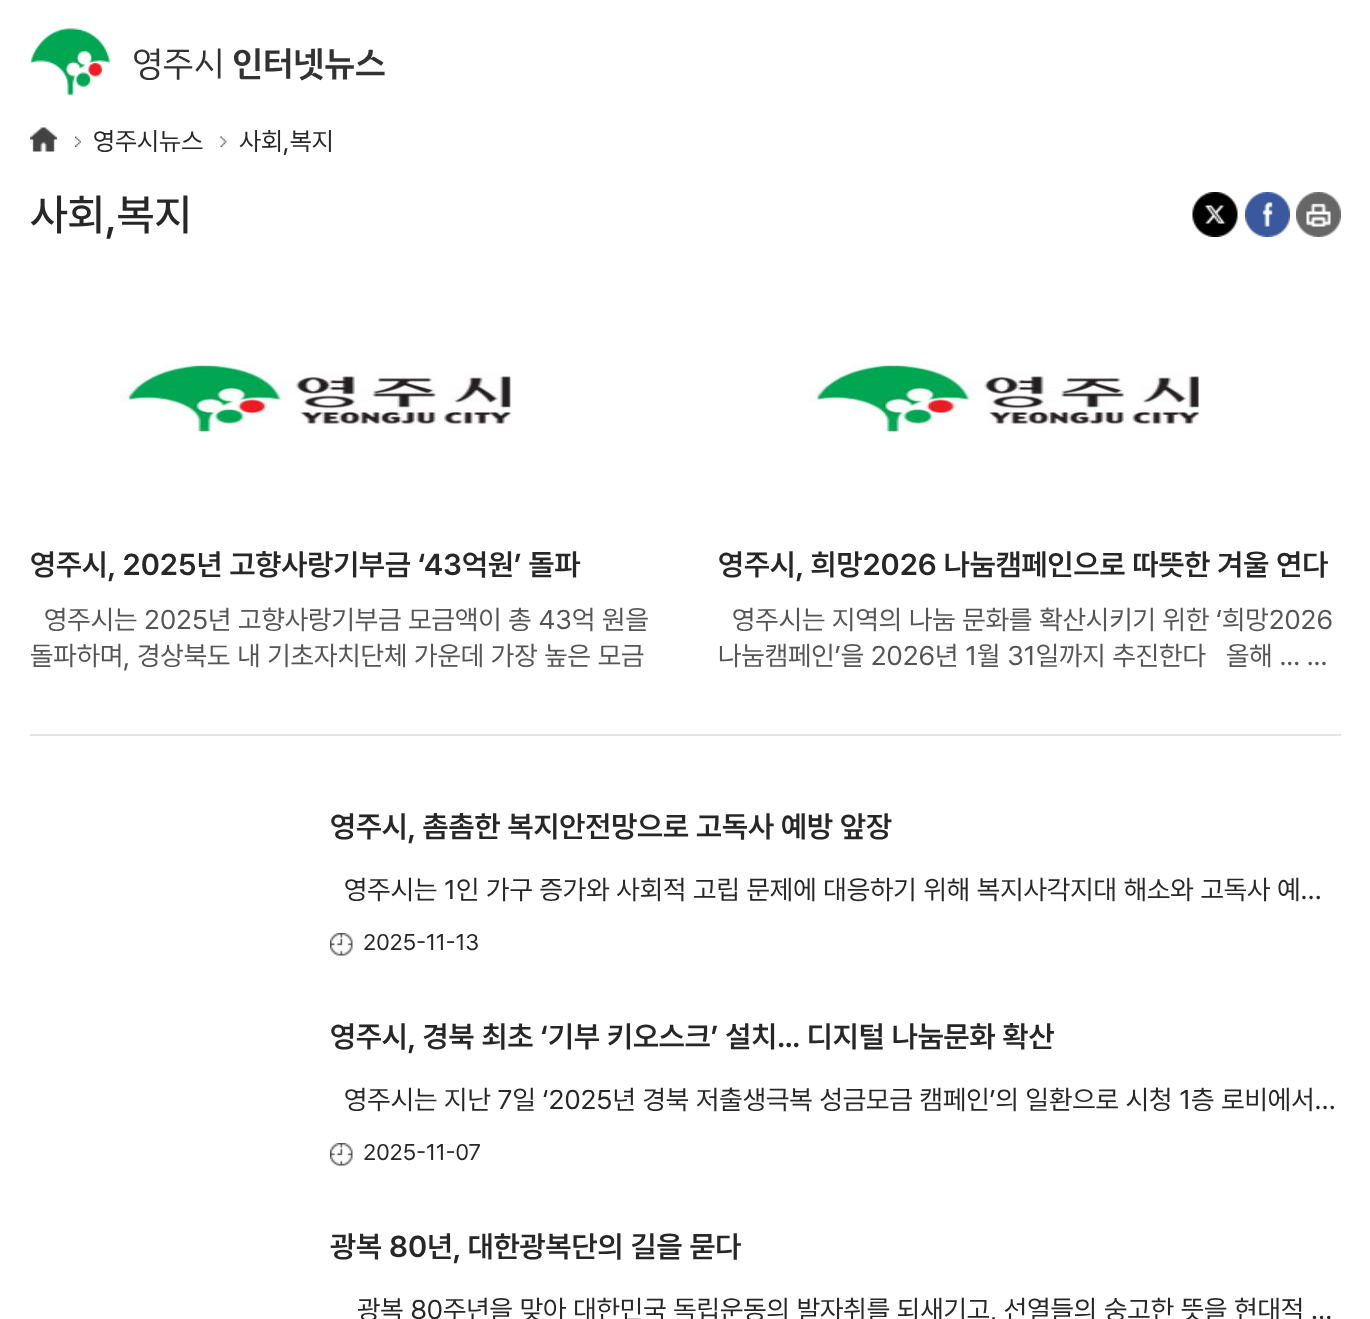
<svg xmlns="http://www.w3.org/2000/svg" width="1370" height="1319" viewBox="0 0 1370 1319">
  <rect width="100%" height="100%" fill="#fff"/>
  <image x="30" y="28" width="81" height="68" href="img/1.png"/>
  <image x="30" y="127" width="27" height="25" href="img/2.png"/>
  <image x="75" y="136" width="6" height="11" href="img/3.png"/>
  <image x="220" y="136" width="7" height="11" href="img/4.png"/>
  <image x="1192" y="192" width="46" height="45" href="img/5.png"/>
  <image x="1245" y="192" width="45" height="45" href="img/6.png"/>
  <image x="1296" y="192" width="45" height="45" href="img/7.png"/>
  <image x="120" y="364" width="391" height="69" href="img/8.png"/>
  <image x="809" y="364" width="390" height="69" href="img/9.png"/>
  <path d="M30 734h1311v2H30z" fill="#e4e4e4"/>
  <image x="330" y="933" width="23" height="23" href="img/10.png"/>
  <image x="330" y="1143" width="23" height="23" href="img/10.png"/>
  <text x="132" y="75" font-family="IBM Plex Sans KR" font-size="34.5" fill="#323232">영주시</text>
  <text x="232" y="75" font-family="IBM Plex Sans KR" font-size="34.5" font-weight="600" fill="#323232">인터넷뉴스</text>
  <g font-family="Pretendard" font-size="25.5" fill="#272727">
    <text x="93" y="150">영주시뉴스</text>
    <text x="239" y="150">사회,복지</text>
  </g>
  <text x="30" y="230" font-family="Pretendard" font-size="43.5" font-weight="500" fill="#272727">사회,복지</text>
  <text x="30" y="575" font-family="Pretendard" font-size="30" font-weight="600" fill="#272727">영주시, 2025년 고향사랑기부금 ‘43억원’ 돌파</text>
  <g font-family="Pretendard" font-size="27" fill="#555">
    <text x="44" y="629">영주시는 2025년 고향사랑기부금 모금액이 총 43억 원을</text>
    <text x="30" y="665">돌파하며, 경상북도 내 기초자치단체 가운데 가장 높은 모금</text>
  </g>
  <text x="718" y="575" font-family="Pretendard" font-size="30" font-weight="600" fill="#272727">영주시, 희망2026 나눔캠페인으로 따뜻한 겨울 연다</text>
  <g font-family="Pretendard" font-size="27" fill="#555">
    <text x="732" y="629">영주시는 지역의 나눔 문화를 확산시키기 위한 ‘희망2026</text>
    <text x="718" y="665">나눔캠페인’을 2026년 1월 31일까지 추진한다</text>
    <text x="1226" y="665">올해 ... ...</text>
  </g>
  <text x="330" y="837" font-family="Pretendard" font-size="30" font-weight="600" fill="#272727">영주시, 촘촘한 복지안전망으로 고독사 예방 앞장</text>
  <text x="344" y="899" font-family="Pretendard" font-size="27" fill="#272727">영주시는 1인 가구 증가와 사회적 고립 문제에 대응하기 위해 복지사각지대 해소와 고독사 예…</text>
  <text x="363" y="950" font-family="Pretendard" font-size="22.5" fill="#272727">2025-11-13</text>
  <text x="330" y="1047" font-family="Pretendard" font-size="30" font-weight="600" fill="#272727">영주시, 경북 최초 ‘기부 키오스크’ 설치… 디지털 나눔문화 확산</text>
  <text x="344" y="1109" font-family="Pretendard" font-size="27" fill="#272727">영주시는 지난 7일 ‘2025년 경북 저출생극복 성금모금 캠페인’의 일환으로 시청 1층 로비에서…</text>
  <text x="363" y="1160" font-family="Pretendard" font-size="22.5" fill="#272727">2025-11-07</text>
  <text x="330" y="1257" font-family="Pretendard" font-size="30" font-weight="600" fill="#272727">광복 80년, 대한광복단의 길을 묻다</text>
  <text x="357" y="1319" font-family="Pretendard" font-size="27" fill="#272727">광복 80주년을 맞아 대한민국 독립운동의 발자취를 되새기고, 선열들의 숭고한 뜻을 현대적 …</text>
</svg>
